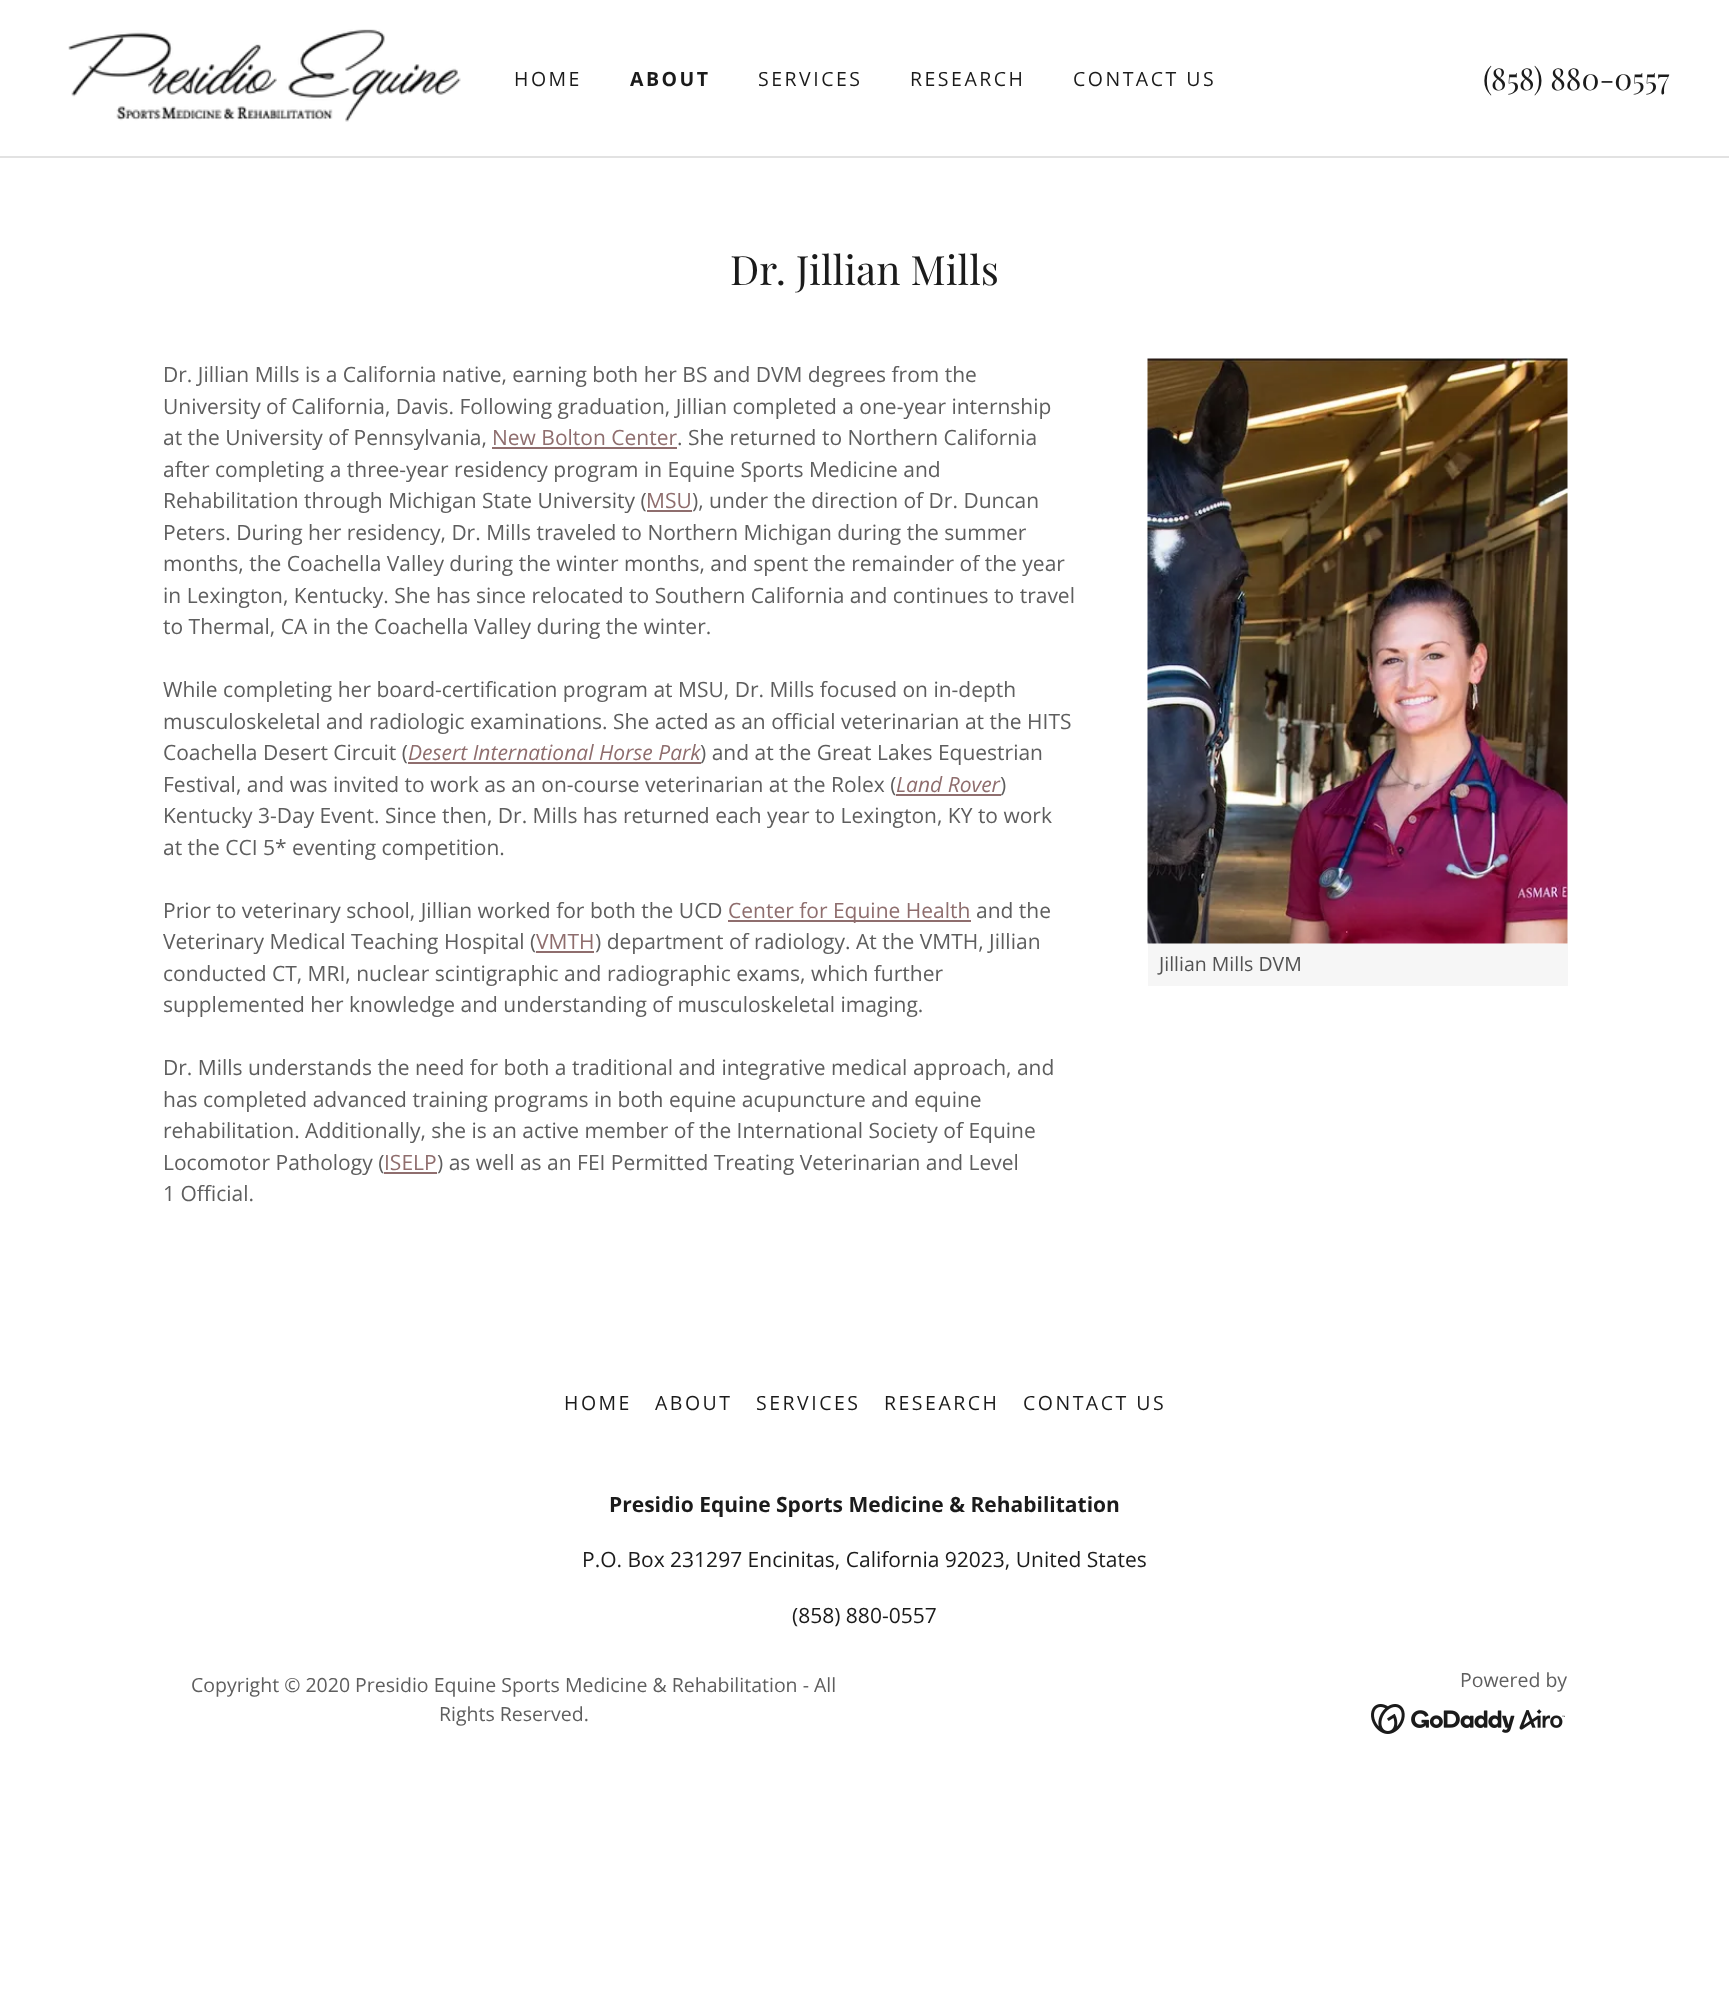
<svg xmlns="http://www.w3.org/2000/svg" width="1729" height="2002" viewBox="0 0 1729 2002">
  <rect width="100%" height="100%" fill="#fff"/>
  <image x="68" y="29" width="393" height="93" href="img/1.png"/>
  <path d="M0 156h1729v2H0z" fill="#e2e2e2"/>
  <path d="M492 447h185v2H492z" fill="#8f6e6e"/>
  <path d="M647 510h45v2H647z" fill="#8f6e6e"/>
  <path d="M408 762h293v2H408z" fill="#8f6e6e"/>
  <path d="M896 794h105v2H896z" fill="#8f6e6e"/>
  <path d="M728 920h243v2H728z" fill="#8f6e6e"/>
  <path d="M536 951h58v2H536z" fill="#8f6e6e"/>
  <path d="M384 1172h53v2H384z" fill="#8f6e6e"/>
  <image x="1147" y="358" width="421" height="586" href="img/2.png"/>
  <path d="M1148 944h420v42H1148z" fill="#f6f6f6"/>
  <image x="1371" y="1704" width="194" height="30" href="img/3.png"/>
  <text x="514" y="86" font-family="Open Sans" font-size="19.5" letter-spacing="2.5" fill="#1b1b1b">HOME</text>
  <text x="630" y="86" font-family="Open Sans" font-size="19.5" font-weight="bold" letter-spacing="2.5" fill="#1b1b1b">ABOUT</text>
  <g font-family="Open Sans" font-size="19.5" letter-spacing="2.5" fill="#1b1b1b">
    <text x="758" y="86">SERVICES</text>
    <text x="910" y="86">RESEARCH</text>
    <text x="1073" y="86">CONTACT US</text>
  </g>
  <text x="1483" y="90" font-family="Playfair Display" font-size="30" fill="#1b1b1b">(858) 880-0557</text>
  <text x="730" y="285" font-family="Playfair Display" font-size="40.5" fill="#1b1b1b">Dr. Jillian Mills</text>
  <g font-family="Open Sans" font-size="21" fill="#5e5e5e">
    <text x="163" y="382">Dr. Jillian Mills is a California native, earning both her BS and DVM degrees from the</text>
    <text x="163" y="414">University of California, Davis. Following graduation, Jillian completed a one-year internship</text>
    <text x="163" y="445">at the University of Pennsylvania,</text>
  </g>
  <text x="492" y="445" font-family="Open Sans" font-size="21" fill="#8f6e6e">New Bolton Center</text>
  <g font-family="Open Sans" font-size="21" fill="#5e5e5e">
    <text x="677" y="445">. She returned to Northern California</text>
    <text x="163" y="477">after completing a three-year residency program in Equine Sports Medicine and</text>
    <text x="163" y="508">Rehabilitation through Michigan State University (</text>
  </g>
  <text x="646" y="508" font-family="Open Sans" font-size="21" fill="#8f6e6e">MSU</text>
  <g font-family="Open Sans" font-size="21" fill="#5e5e5e">
    <text x="692" y="508">), under the direction of Dr. Duncan</text>
    <text x="163" y="540">Peters. During her residency, Dr. Mills traveled to Northern Michigan during the summer</text>
    <text x="163" y="571">months, the Coachella Valley during the winter months, and spent the remainder of the year</text>
    <text x="163" y="603">in Lexington, Kentucky. She has since relocated to Southern California and continues to travel</text>
    <text x="163" y="634">to Thermal, CA in the Coachella Valley during the winter.</text>
    <text x="163" y="697">While completing her board-certification program at MSU, Dr. Mills focused on in-depth</text>
    <text x="163" y="729">musculoskeletal and radiologic examinations. She acted as an official veterinarian at the HITS</text>
    <text x="163" y="760">Coachella Desert Circuit (</text>
  </g>
  <text x="408" y="760" font-family="Open Sans" font-size="21" font-style="italic" fill="#8f6e6e">Desert International Horse Park</text>
  <g font-family="Open Sans" font-size="21" fill="#5e5e5e">
    <text x="700" y="760">) and at the Great Lakes Equestrian</text>
    <text x="163" y="792">Festival, and was invited to work as an on-course veterinarian at the Rolex (</text>
  </g>
  <text x="896" y="792" font-family="Open Sans" font-size="21" font-style="italic" fill="#8f6e6e">Land Rover</text>
  <g font-family="Open Sans" font-size="21" fill="#5e5e5e">
    <text x="1000" y="792">)</text>
    <text x="163" y="823">Kentucky 3-Day Event. Since then, Dr. Mills has returned each year to Lexington, KY to work</text>
    <text x="163" y="855">at the CCI 5* eventing competition.</text>
    <text x="163" y="918">Prior to veterinary school, Jillian worked for both the UCD</text>
  </g>
  <text x="728" y="918" font-family="Open Sans" font-size="21" fill="#8f6e6e">Center for Equine Health</text>
  <g font-family="Open Sans" font-size="21" fill="#5e5e5e">
    <text x="976" y="918">and the</text>
    <text x="163" y="949">Veterinary Medical Teaching Hospital (</text>
  </g>
  <text x="536" y="949" font-family="Open Sans" font-size="21" fill="#8f6e6e">VMTH</text>
  <g font-family="Open Sans" font-size="21" fill="#5e5e5e">
    <text x="595" y="949">) department of radiology. At the VMTH, Jillian</text>
    <text x="163" y="981">conducted CT, MRI, nuclear scintigraphic and radiographic exams, which further</text>
    <text x="163" y="1012">supplemented her knowledge and understanding of musculoskeletal imaging.</text>
    <text x="163" y="1075">Dr. Mills understands the need for both a traditional and integrative medical approach, and</text>
    <text x="163" y="1107">has completed advanced training programs in both equine acupuncture and equine</text>
    <text x="163" y="1138">rehabilitation. Additionally, she is an active member of the International Society of Equine</text>
    <text x="163" y="1170">Locomotor Pathology (</text>
  </g>
  <text x="384" y="1170" font-family="Open Sans" font-size="21" fill="#8f6e6e">ISELP</text>
  <g font-family="Open Sans" font-size="21" fill="#5e5e5e">
    <text x="437" y="1170">) as well as an FEI Permitted Treating Veterinarian and Level</text>
    <text x="163" y="1201">1 Official.</text>
  </g>
  <text x="1159" y="971" font-family="Open Sans" font-size="19.5" fill="#525252">Jillian Mills DVM</text>
  <g font-family="Open Sans" font-size="19.5" letter-spacing="2.5" fill="#1b1b1b">
    <text x="564" y="1410">HOME</text>
    <text x="655" y="1410">ABOUT</text>
    <text x="756" y="1410">SERVICES</text>
    <text x="884" y="1410">RESEARCH</text>
    <text x="1023" y="1410">CONTACT US</text>
  </g>
  <text x="609" y="1512" font-family="Open Sans" font-size="21" font-weight="bold" fill="#1b1b1b">Presidio Equine Sports Medicine &amp; Rehabilitation</text>
  <g font-family="Open Sans" font-size="21" fill="#1b1b1b">
    <text x="582" y="1567">P.O. Box 231297 Encinitas, California 92023, United States</text>
    <text x="792" y="1623">(858) 880-0557</text>
  </g>
  <g font-family="Open Sans" font-size="19.5" fill="#5e5e5e">
    <text x="191" y="1692">Copyright © 2020 Presidio Equine Sports Medicine &amp; Rehabilitation - All</text>
    <text x="439" y="1721">Rights Reserved.</text>
    <text x="1460" y="1687">Powered by</text>
  </g>
</svg>
